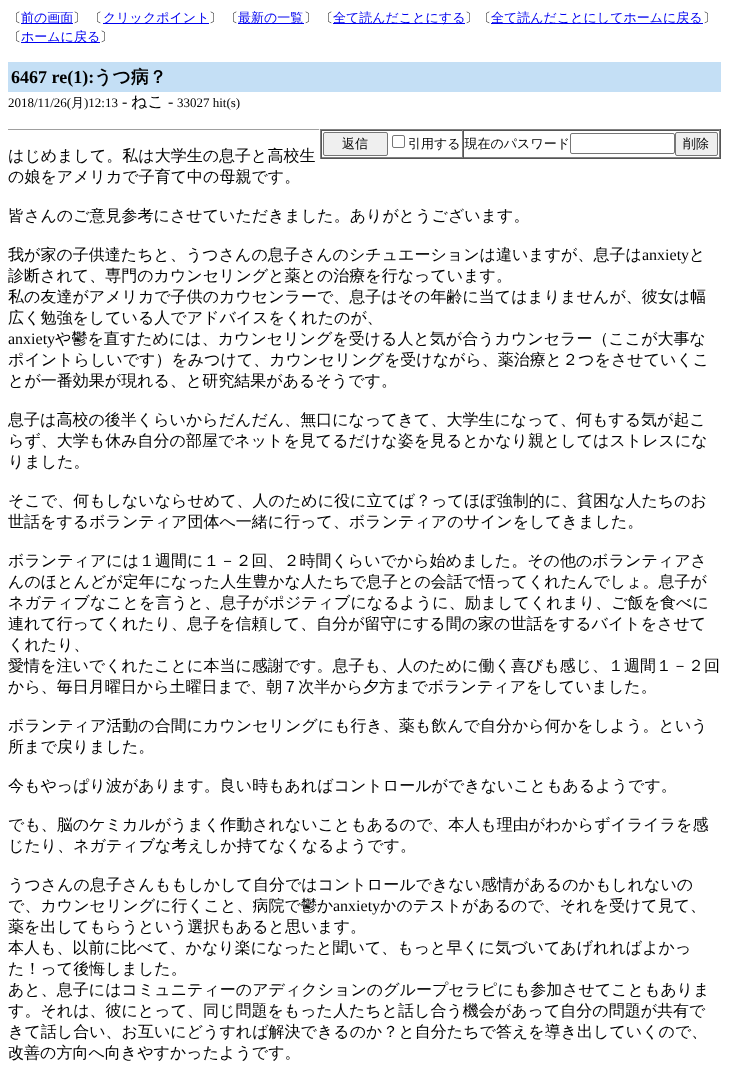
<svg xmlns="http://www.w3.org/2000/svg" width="729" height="1084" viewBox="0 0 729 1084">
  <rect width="100%" height="100%" fill="#fff"/>
  <path d="M21 23h52v1H21z" fill="#00e"/>
  <path d="M103 23h106v1H103z" fill="#00e"/>
  <path d="M238 23h66v1H238z" fill="#00e"/>
  <path d="M333 23h132v1H333z" fill="#00e"/>
  <path d="M491 23h212v1H491z" fill="#00e"/>
  <path d="M21 42h79v1H21z" fill="#00e"/>
  <path d="M8 62h713v30H8z" fill="#c4dff5"/>
  <path d="M8 129h312v1H8z" fill="#9f9f9f"/>
  <path d="M319 129h1v1H319z" fill="#eee"/>
  <path d="M320 129h401v1H320z" fill="#808080"/>
  <path d="M720 129h1v30H720z" fill="#555"/>
  <path d="M320 158h401v1H320z" fill="#555"/>
  <path d="M320 129h1v30H320z" fill="#808080"/>
  <path d="M321 130h399v1H321z" fill="#555"/>
  <path d="M462 130h1v28H462z" fill="#808080"/>
  <path d="M321 157h142v1H321z" fill="#808080"/>
  <path d="M321 130h1v28H321z" fill="#555"/>
  <rect x="323.5" y="132.5" width="64" height="23" rx="1.5" fill="#efefef" stroke="#767676"/>
  <rect x="392.5" y="135.5" width="12" height="12" rx="1.5" fill="none" stroke="#767676"/>
  <path d="M719 130h1v28H719z" fill="#808080"/>
  <path d="M463 157h257v1H463z" fill="#808080"/>
  <path d="M463 130h1v28H463z" fill="#555"/>
  <rect x="570.5" y="133.5" width="104" height="20" rx="1.5" fill="none" stroke="#767676"/>
  <rect x="675.5" y="132.5" width="42" height="23" rx="1.5" fill="#efefef" stroke="#767676"/>
  <text x="8" y="22" font-family="WenQuanYi Zen Hei" font-size="13" font-weight="500" fill="#000">〔</text>
  <text x="21" y="22" font-family="WenQuanYi Zen Hei" font-size="13" font-weight="500" fill="#00e">前の画面</text>
  <text x="73" y="22" word-spacing="-1" font-family="WenQuanYi Zen Hei" font-size="13" font-weight="500" fill="#000">〕 〔</text>
  <text x="103" y="22" font-family="WenQuanYi Zen Hei" font-size="13" font-weight="500" fill="#00e">クリックポイント</text>
  <text x="209" y="22" word-spacing="-1" font-family="WenQuanYi Zen Hei" font-size="13" font-weight="500" fill="#000">〕 〔</text>
  <text x="238" y="22" font-family="WenQuanYi Zen Hei" font-size="13" font-weight="500" fill="#00e">最新の一覧</text>
  <text x="304" y="22" word-spacing="-1" font-family="WenQuanYi Zen Hei" font-size="13" font-weight="500" fill="#000">〕 〔</text>
  <text x="333" y="22" font-family="WenQuanYi Zen Hei" font-size="13" font-weight="500" fill="#00e">全て読んだことにする</text>
  <text x="465" y="22" font-family="WenQuanYi Zen Hei" font-size="13" font-weight="500" fill="#000">〕〔</text>
  <text x="491" y="22" font-family="WenQuanYi Zen Hei" font-size="13" font-weight="500" fill="#00e">全て読んだことにしてホームに戻る</text>
  <g font-family="WenQuanYi Zen Hei" font-size="13" font-weight="500" fill="#000">
    <text x="703" y="22">〕</text>
    <text x="8" y="41">〔</text>
  </g>
  <text x="21" y="41" font-family="WenQuanYi Zen Hei" font-size="13" font-weight="500" fill="#00e">ホームに戻る</text>
  <text x="100" y="41" font-family="WenQuanYi Zen Hei" font-size="13" font-weight="500" fill="#000">〕</text>
  <text x="11" y="83" font-family="Liberation Serif" font-size="18" font-weight="bold" fill="#000">6467 re(1):</text>
  <text x="94" y="83" font-family="WenQuanYi Zen Hei" font-size="18" font-weight="bold" fill="#000">うつ病？</text>
  <text x="8" y="107" font-family="Liberation Serif" font-size="13" fill="#000">2018/11/26(</text>
  <text x="71" y="107" font-family="WenQuanYi Zen Hei" font-size="13" font-weight="500" fill="#000">月</text>
  <text x="84" y="107" font-family="Liberation Serif" font-size="13" fill="#000">)12:13</text>
  <text x="122" y="107" font-family="Liberation Serif" font-size="16" fill="#000">-</text>
  <text x="131" y="107" font-family="WenQuanYi Zen Hei" font-size="16" font-weight="500" fill="#000">ねこ</text>
  <text x="168" y="107" font-family="Liberation Serif" font-size="16" fill="#000">-</text>
  <text x="177" y="107" font-family="Liberation Serif" font-size="13" fill="#000">33027 hit(s)</text>
  <g font-family="WenQuanYi Zen Hei" font-size="13" font-weight="500" fill="#000">
    <text x="342" y="148">返信</text>
    <text x="408" y="148">引用する 現在のパスワード</text>
    <text x="683" y="148">削除</text>
  </g>
  <g font-family="WenQuanYi Zen Hei" font-size="16" font-weight="500" fill="#000">
    <text x="8" y="161">はじめまして。私は大学生の息子と高校生</text>
    <text x="8" y="182">の娘をアメリカで子育て中の母親です。</text>
    <text x="8" y="221">皆さんのご意見参考にさせていただきました。ありがとうございます。</text>
    <text x="8" y="260">我が家の子供達たちと、うつさんの息子さんのシチュエーションは違いますが、息子は</text>
  </g>
  <text x="642" y="260" font-family="Liberation Serif" font-size="16" fill="#000">anxiety</text>
  <g font-family="WenQuanYi Zen Hei" font-size="16" font-weight="500" fill="#000">
    <text x="689" y="260">と</text>
    <text x="8" y="281">診断されて、専門のカウンセリングと薬との治療を行なっています。</text>
    <text x="8" y="302">私の友達がアメリカで子供のカウセンラーで、息子はその年齢に当てはまりませんが、彼女は幅</text>
    <text x="8" y="323">広く勉強をしている人でアドバイスをくれたのが、</text>
  </g>
  <text x="8" y="344" font-family="Liberation Serif" font-size="16" fill="#000">anxiety</text>
  <g font-family="WenQuanYi Zen Hei" font-size="16" font-weight="500" fill="#000">
    <text x="55" y="344">や鬱を直すためには、カウンセリングを受ける人と気が合うカウンセラー（ここが大事な</text>
    <text x="8" y="365">ポイントらしいです）をみつけて、カウンセリングを受けながら、薬治療と２つをさせていくこ</text>
    <text x="8" y="386">とが一番効果が現れる、と研究結果があるそうです。</text>
    <text x="8" y="425">息子は高校の後半くらいからだんだん、無口になってきて、大学生になって、何もする気が起こ</text>
    <text x="8" y="446">らず、大学も休み自分の部屋でネットを見てるだけな姿を見るとかなり親としてはストレスにな</text>
    <text x="8" y="467">りました。</text>
    <text x="8" y="506">そこで、何もしないならせめて、人のために役に立てば？ってほぼ強制的に、貧困な人たちのお</text>
    <text x="8" y="527">世話をするボランティア団体へ一緒に行って、ボランティアのサインをしてきました。</text>
    <text x="8" y="566">ボランティアには１週間に１－２回、２時間くらいでから始めました。その他のボランティアさ</text>
    <text x="8" y="587">んのほとんどが定年になった人生豊かな人たちで息子との会話で悟ってくれたんでしょ。息子が</text>
    <text x="8" y="608">ネガティブなことを言うと、息子がポジティブになるように、励ましてくれまり、ご飯を食べに</text>
    <text x="8" y="629">連れて行ってくれたり、息子を信頼して、自分が留守にする間の家の世話をするバイトをさせて</text>
    <text x="8" y="650">くれたり、</text>
    <text x="8" y="671">愛情を注いでくれたことに本当に感謝です。息子も、人のために働く喜びも感じ、１週間１－２回</text>
    <text x="8" y="692">から、毎日月曜日から土曜日まで、朝７次半から夕方までボランティアをしていました。</text>
    <text x="8" y="731">ボランティア活動の合間にカウンセリングにも行き、薬も飲んで自分から何かをしよう。という</text>
    <text x="8" y="752">所まで戻りました。</text>
    <text x="8" y="791">今もやっぱり波があります。良い時もあればコントロールができないこともあるようです。</text>
    <text x="8" y="830">でも、脳のケミカルがうまく作動されないこともあるので、本人も理由がわからずイライラを感</text>
    <text x="8" y="851">じたり、ネガティブな考えしか持てなくなるようです。</text>
    <text x="8" y="890">うつさんの息子さんももしかして自分ではコントロールできない感情があるのかもしれないの</text>
    <text x="8" y="911">で、カウンセリングに行くこと、病院で鬱か</text>
  </g>
  <text x="333" y="911" font-family="Liberation Serif" font-size="16" fill="#000">anxiety</text>
  <g font-family="WenQuanYi Zen Hei" font-size="16" font-weight="500" fill="#000">
    <text x="380" y="911">かのテストがあるので、それを受けて見て、</text>
    <text x="8" y="932">薬を出してもらうという選択もあると思います。</text>
    <text x="8" y="953">本人も、以前に比べて、かなり楽になったと聞いて、もっと早くに気づいてあげれればよかっ</text>
    <text x="8" y="974">た！って後悔しました。</text>
    <text x="8" y="995">あと、息子にはコミュニティーのアディクションのグループセラピにも参加させてこともありま</text>
    <text x="8" y="1016">す。それは、彼にとって、同じ問題をもった人たちと話し合う機会があって自分の問題が共有で</text>
    <text x="8" y="1037">きて話し合い、お互いにどうすれば解決できるのか？と自分たちで答えを導き出していくので、</text>
    <text x="8" y="1058">改善の方向へ向きやすかったようです。</text>
  </g>
</svg>
